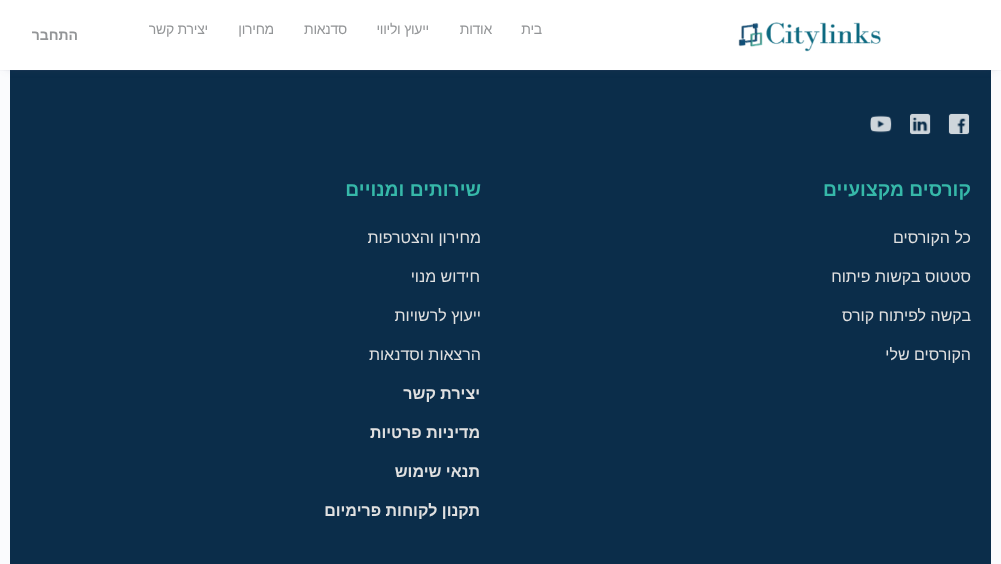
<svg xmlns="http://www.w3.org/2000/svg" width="1001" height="564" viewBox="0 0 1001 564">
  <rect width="100%" height="100%" fill="#fafbfd"/>
  <path d="M10 70h981v494H10z" fill="#0b2d4a"/>
  <path d="M7 12h987v56H7z" fill="#41476c40" filter="blur(5px)"/>
  <path d="M0 70h1001v1H0z" fill="#8b8d9d0d"/>
  <path d="M0 0h1001v70H0z" fill="#fff"/>
  <image x="738" y="22" width="143" height="30" href="img/1.png"/>
  <image x="948" y="113" width="22" height="22" href="img/2.png"/>
  <image x="910" y="113" width="21" height="22" href="img/3.png"/>
  <image x="870" y="115" width="22" height="18" href="img/4.png"/>
  <g font-family="Liberation Sans" font-size="14" letter-spacing="-0.25" direction="rtl" fill="#939597">
    <text x="542" y="34">בית</text>
    <text x="492" y="34">אודות</text>
    <text x="429" y="34">ייעוץ וליווי</text>
    <text x="347" y="34">סדנאות</text>
    <text x="274" y="34">מחירון</text>
    <text x="208" y="34">יצירת קשר</text>
  </g>
  <text x="78" y="40" font-family="Liberation Sans" font-size="14" font-weight="bold" direction="rtl" fill="#939597">התחבר</text>
  <text x="971" y="196" font-family="Liberation Sans" font-size="19.25" font-weight="bold" direction="rtl" fill="#36b8a9">קורסים מקצועיים</text>
  <g font-family="Liberation Sans" font-size="16" direction="rtl" fill="#e0e0e0">
    <text x="971" y="243">כל הקורסים</text>
    <text x="971" y="282">סטטוס בקשות פיתוח</text>
    <text x="971" y="321">בקשה לפיתוח קורס</text>
    <text x="971" y="360">הקורסים שלי</text>
  </g>
  <text x="481" y="196" font-family="Liberation Sans" font-size="19.25" font-weight="bold" direction="rtl" fill="#36b8a9">שירותים ומנויים</text>
  <g font-family="Liberation Sans" font-size="16" direction="rtl" fill="#e0e0e0">
    <text x="481" y="243">מחירון והצטרפות</text>
    <text x="480" y="282">חידוש מנוי</text>
    <text x="481" y="321">ייעוץ לרשויות</text>
    <text x="481" y="360">הרצאות וסדנאות</text>
  </g>
  <g font-family="Liberation Sans" font-size="16" font-weight="bold" direction="rtl" fill="#e0e0e0">
    <text x="480" y="399">יצירת קשר</text>
    <text x="480" y="438">מדיניות פרטיות</text>
    <text x="480" y="477">תנאי שימוש</text>
    <text x="480" y="516">תקנון לקוחות פרימיום</text>
  </g>
</svg>
